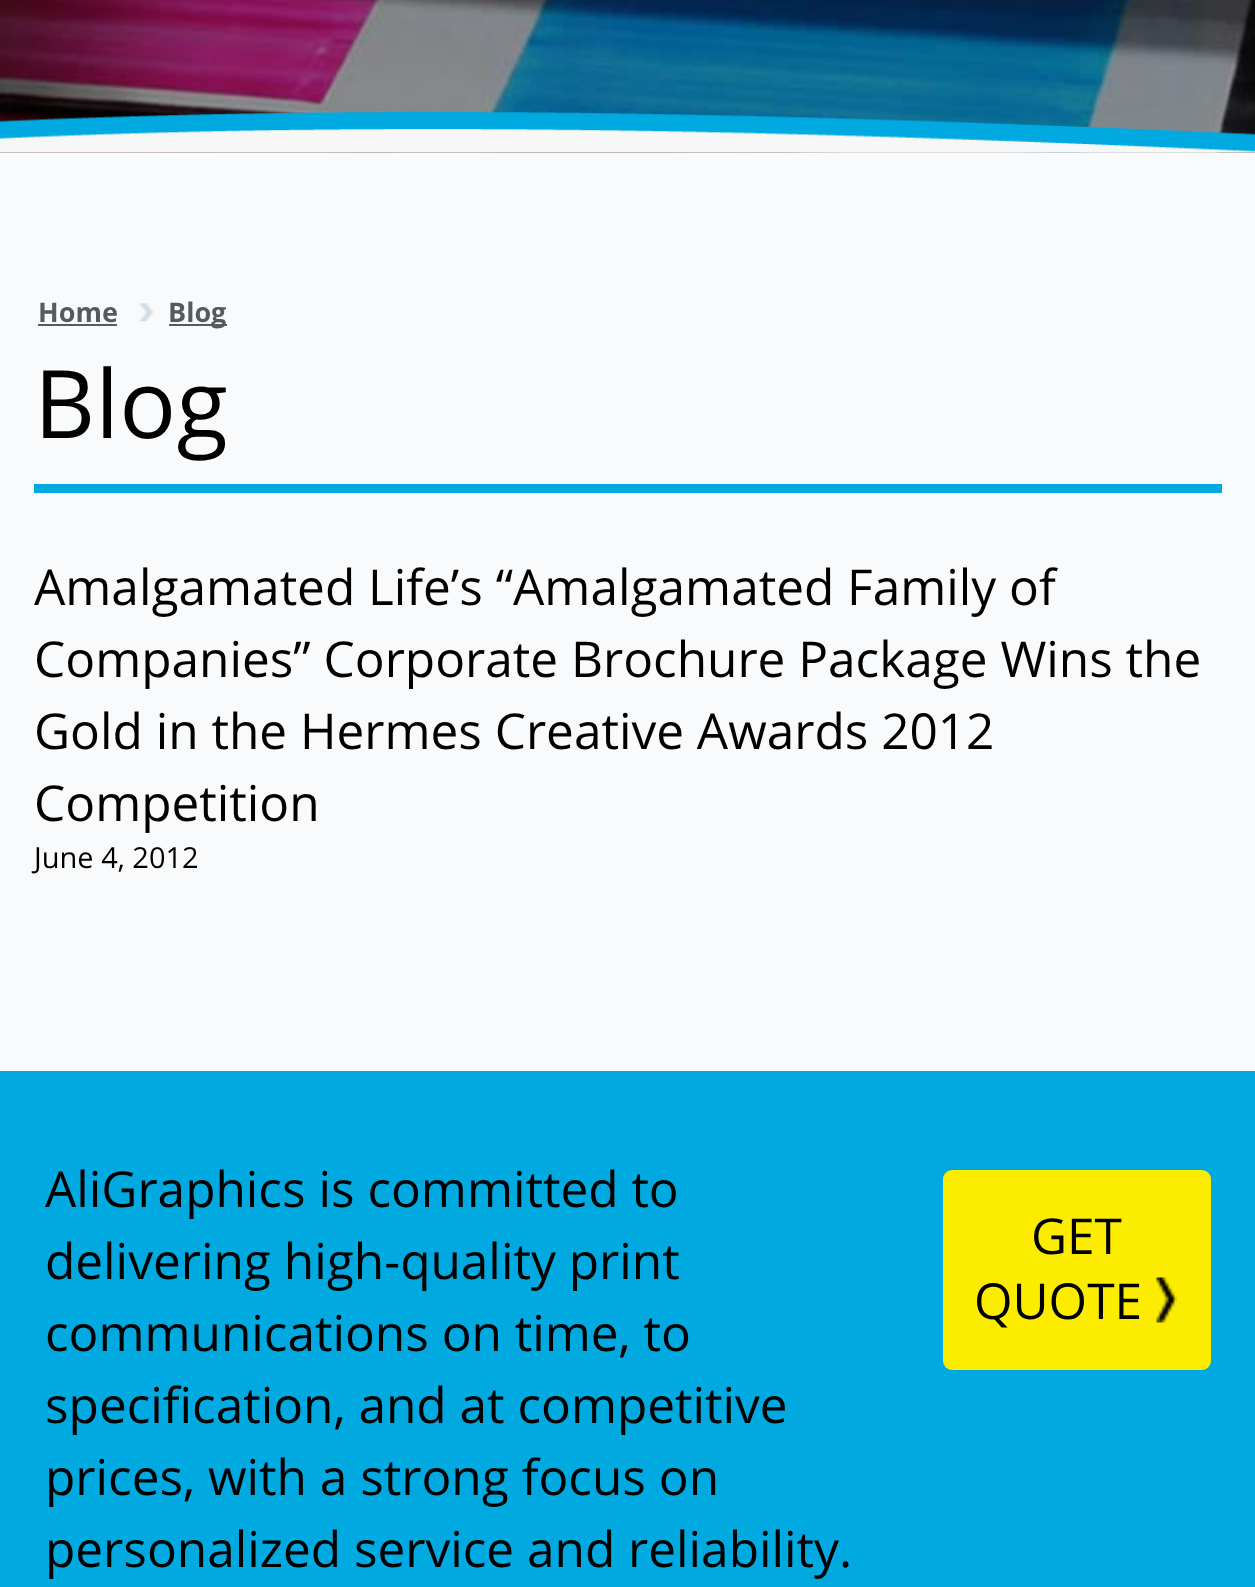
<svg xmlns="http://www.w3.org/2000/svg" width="1255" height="1587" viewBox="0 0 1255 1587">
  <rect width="100%" height="100%" fill="#f9fafb"/>
  <image x="0" y="0" width="1255" height="153" href="img/1.png"/>
  <image x="0" y="112" width="1255" height="41" href="img/2.png"/>
  <path d="M38 324h79v2H38z" fill="#565a5c"/>
  <image x="139" y="303" width="15" height="19" href="img/3.png"/>
  <path d="M169 324h58v2H169z" fill="#565a5c"/>
  <path d="M34 484h1188v9H34z" fill="#00a9e0"/>
  <path d="M0 1071h1255v516H0z" fill="#00a9e0"/>
  <rect x="943" y="1170" width="268" height="200" rx="9" fill="#fcec00"/>
  <image x="1156" y="1277" width="21" height="46" href="img/4.png"/>
  <g font-family="Open Sans" font-size="27" font-weight="bold" fill="#565a5c">
    <text x="38" y="322">Home</text>
    <text x="168" y="322">Blog</text>
  </g>
  <text x="34" y="438" font-family="Open Sans" font-size="94.5" fill="#000">Blog</text>
  <g font-family="Open Sans" font-size="49.5" fill="#000">
    <text x="34" y="605">Amalgamated Life’s “Amalgamated Family of</text>
    <text x="34" y="677">Companies” Corporate Brochure Package Wins the</text>
    <text x="34" y="749">Gold in the Hermes Creative Awards 2012</text>
    <text x="34" y="821">Competition</text>
  </g>
  <text x="34" y="868" font-family="Open Sans" font-size="29" fill="#000">June 4, 2012</text>
  <g font-family="Open Sans" font-size="49.5" fill="#000">
    <text x="45" y="1207">AliGraphics is committed to</text>
    <text x="45" y="1279">delivering high-quality print</text>
    <text x="45" y="1351">communications on time, to</text>
    <text x="45" y="1423">specification, and at competitive</text>
    <text x="45" y="1495">prices, with a strong focus on</text>
    <text x="45" y="1567">personalized service and reliability.</text>
    <text x="1031" y="1254">GET</text>
    <text x="974" y="1319">QUOTE</text>
  </g>
</svg>
